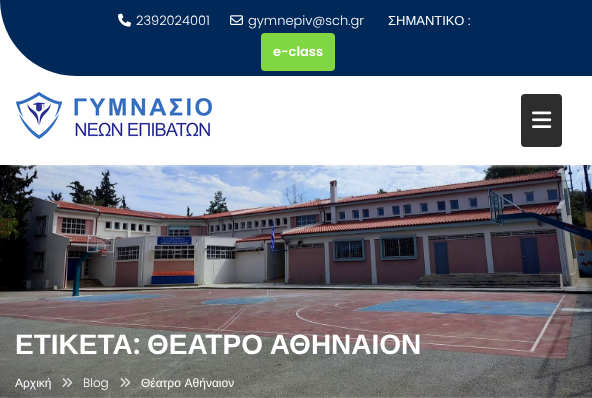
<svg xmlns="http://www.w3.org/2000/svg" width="592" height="398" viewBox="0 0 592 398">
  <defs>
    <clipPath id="clip1"><path d="M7 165h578v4H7z"/></clipPath>
  </defs>
  <rect width="100%" height="100%" fill="#fff"/>
  <path d="M0 0H592V76H76C34 76 0 42 0 0Z" fill="#002858"/>
  <image x="118" y="13" width="13" height="14" href="img/1.png"/>
  <image x="230" y="15" width="13" height="10" href="img/2.png"/>
  <rect x="262" y="34" width="72" height="36" rx="3" fill="#81d742" stroke="#81d742" stroke-width="2"/>
  <image x="0" y="165" width="592" height="233" href="img/5.png"/>
  <g clip-path="url(#clip1)">
    <path d="M10 96h572v69H10z" fill="#eeeeeee6" filter="blur(2px)"/>
  </g>
  <image x="15" y="92" width="198" height="47" href="img/3.png"/>
  <rect x="521" y="94" width="41" height="53" rx="4" fill="#2d2d2d"/>
  <image x="532" y="111" width="20" height="17" href="img/4.png"/>
  <image x="62" y="378" width="11" height="9" href="img/6.png"/>
  <image x="120" y="378" width="11" height="9" href="img/7.png"/>
  <g font-family="Poppins" font-size="13" font-weight="300" fill="#fff">
    <text x="136" y="25">2392024001</text>
    <text x="248" y="25">gymnepiv@sch.gr</text>
  </g>
  <text x="388" y="25" font-family="Liberation Sans" font-size="13" fill="#fff">ΣΗΜΑΝΤΙΚΟ</text>
  <text x="468" y="25" font-family="Poppins" font-size="13" font-weight="300" fill="#fff">:</text>
  <text x="273" y="56" font-family="Poppins" font-size="13" font-weight="600" fill="#fff">e-class</text>
  <text x="15" y="354" font-family="Liberation Sans" font-size="28" font-weight="bold" fill="#fff">ΕΤΙΚΕΤΑ</text>
  <text x="133" y="354" font-family="Poppins" font-size="28" font-weight="600" fill="#fff">:</text>
  <text x="147" y="354" font-family="Liberation Sans" font-size="28" font-weight="bold" fill="#fff">ΘΕΑΤΡΟ ΑΘΗΝΑΙΟΝ</text>
  <text x="15" y="387" font-family="Liberation Sans" font-size="12" fill="#fff">Αρχική</text>
  <text x="83" y="387" font-family="Poppins" font-size="12" font-weight="300" fill="#fff">Blog</text>
  <text x="141" y="387" word-spacing="1" font-family="Liberation Sans" font-size="12" fill="#fff">Θέατρο Αθήναιον</text>
</svg>
